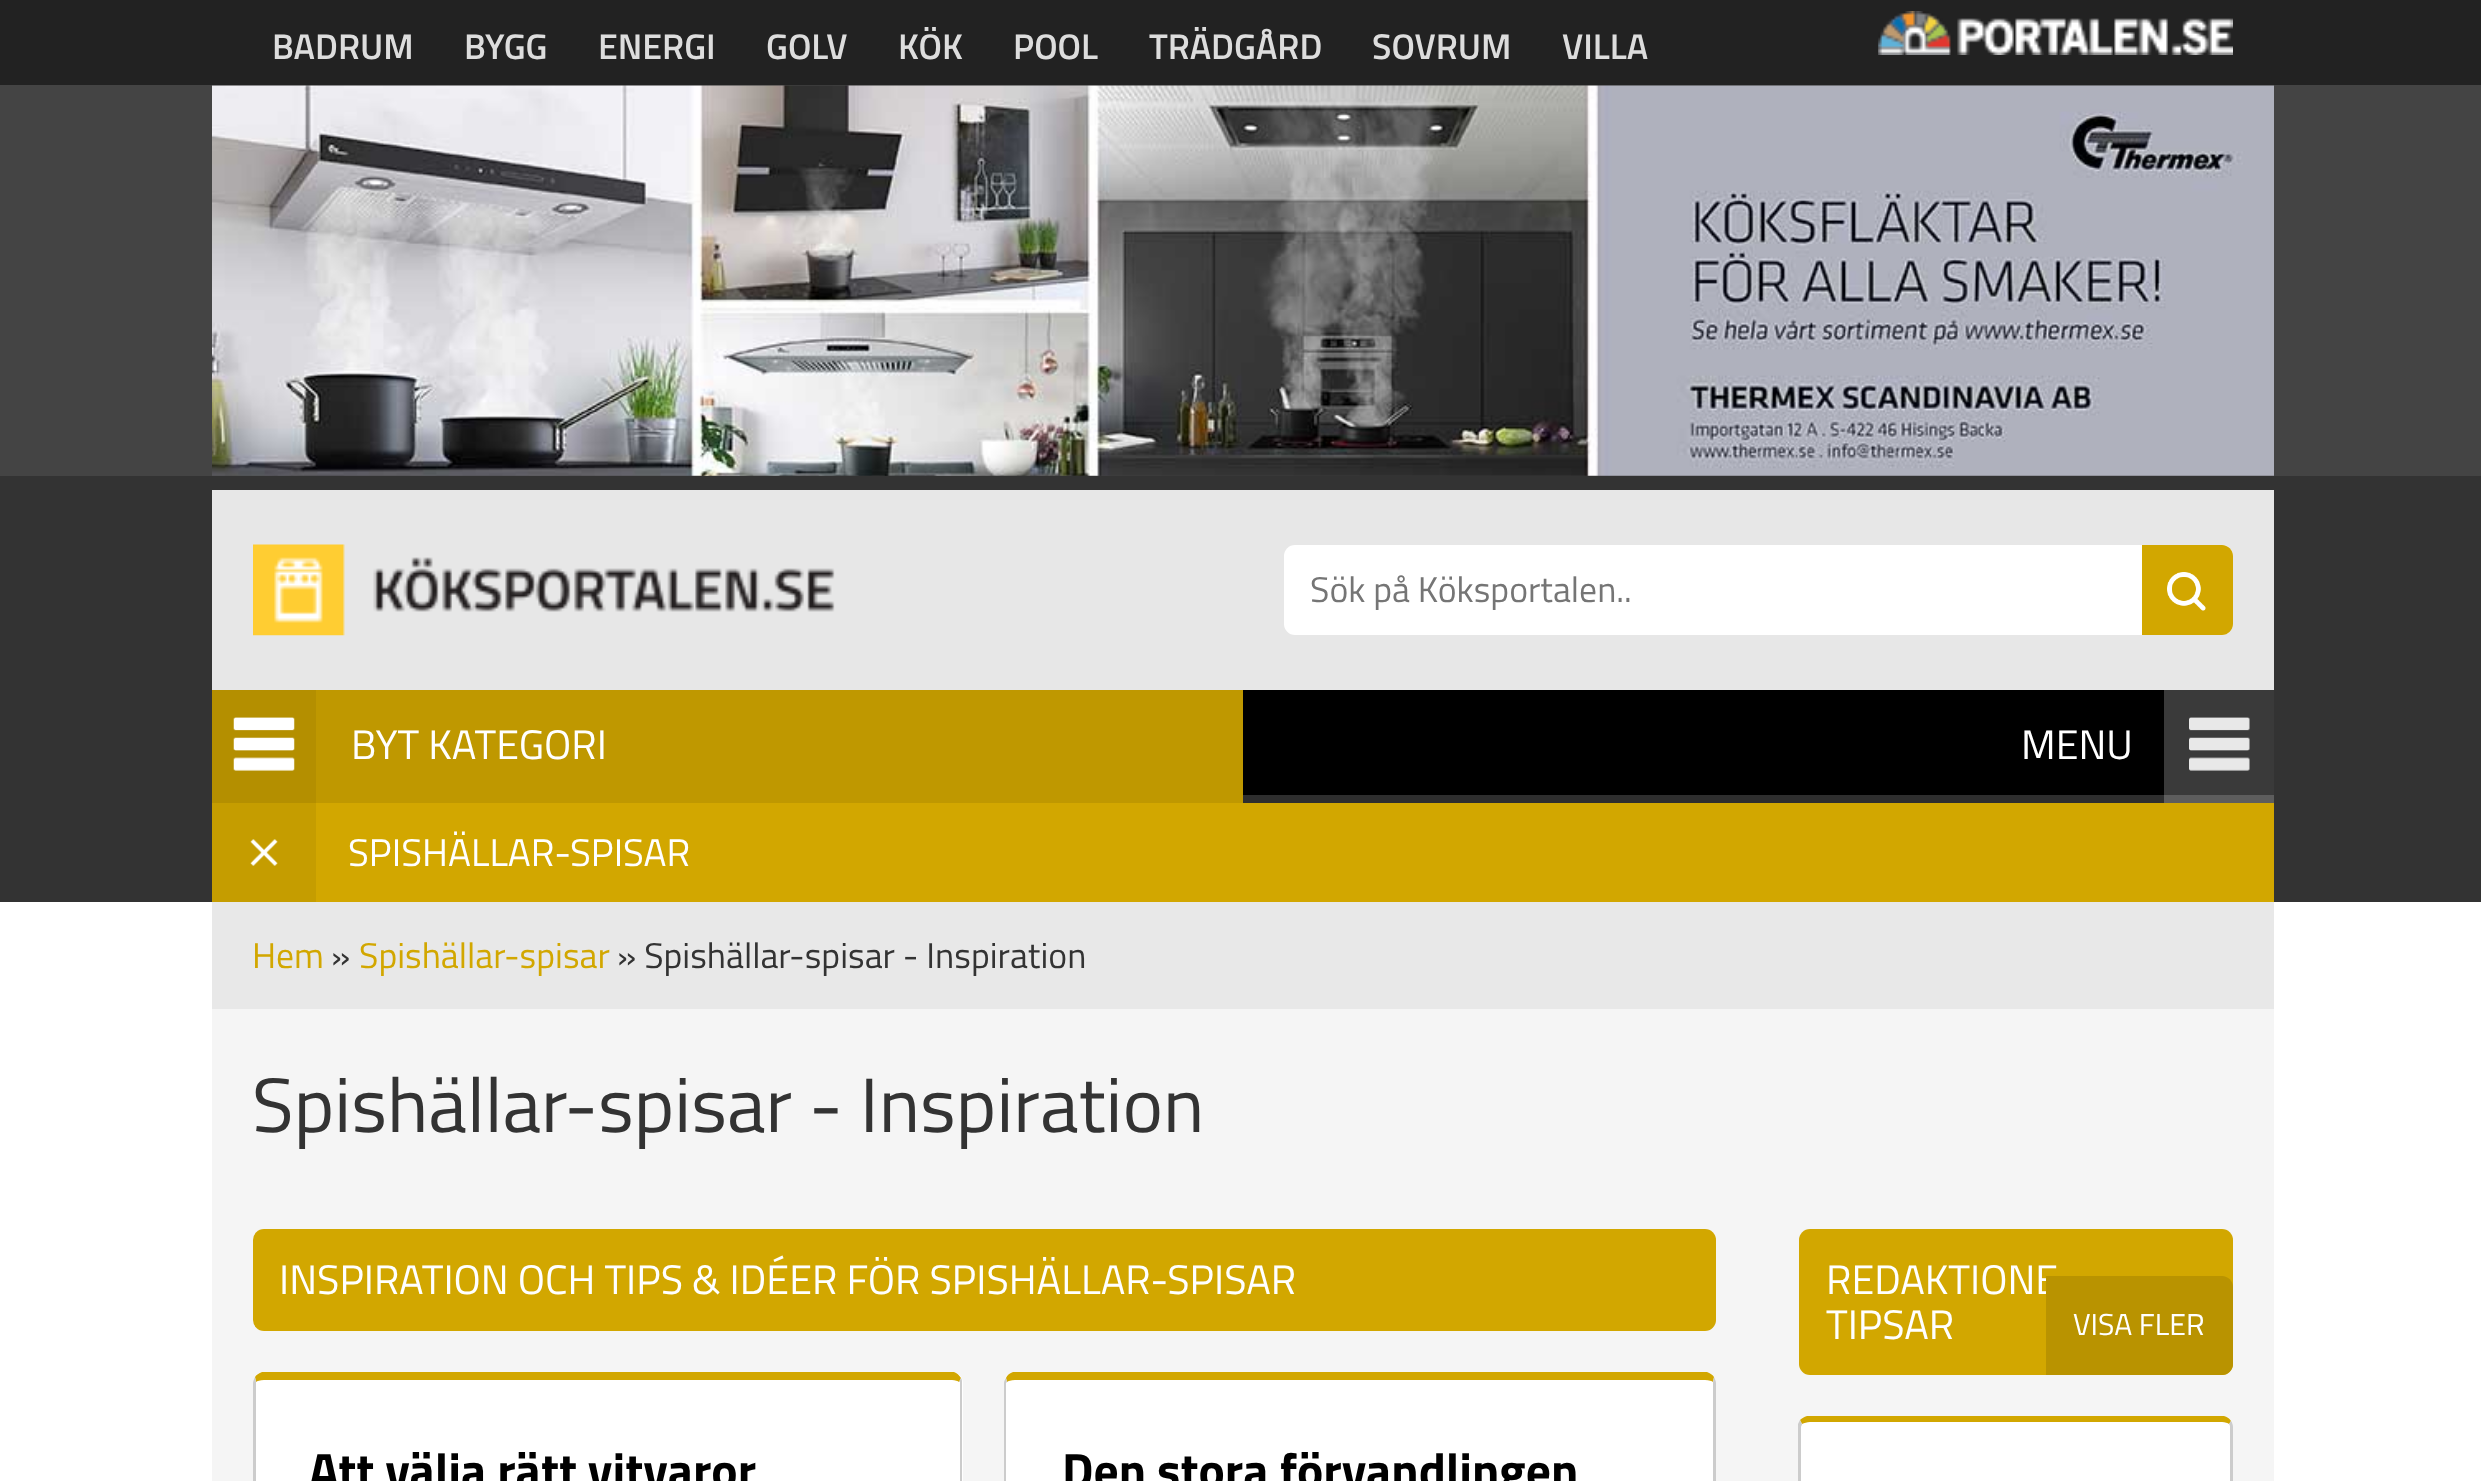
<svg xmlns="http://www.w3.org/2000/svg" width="2481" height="1481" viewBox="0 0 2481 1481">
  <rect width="100%" height="100%" fill="#fff"/>
  <path d="M0 476h2481v426H0z" fill="#333"/>
  <path d="M1243 795h921v8H1243z" fill="#2e2e2e"/>
  <path d="M2164 795h110v8H2164z" fill="#5d5d5d"/>
  <path d="M0 0h2481v85H0z" fill="#222"/>
  <image x="1878" y="11" width="355" height="44" href="img/1.png"/>
  <path d="M0 85h2481v391H0z" fill="#444"/>
  <image x="212" y="85" width="2062" height="391" href="img/2.png"/>
  <path d="M212 490h2062v200H212z" fill="#e7e7e7"/>
  <image x="253" y="544" width="582" height="92" href="img/3.png"/>
  <rect x="1284" y="545" width="949" height="90" rx="11" fill="#fff"/>
  <path d="M2142 545H2222C2228 545 2233 550 2233 556V624C2233 630 2228 635 2222 635H2142Z" fill="#d2a700"/>
  <image x="2167" y="572" width="39" height="39" href="img/4.png"/>
  <path d="M316 690h927v113H316z" fill="#bf9800"/>
  <path d="M212 690h104v113H212z" fill="#b48f00"/>
  <image x="233" y="717" width="62" height="54" href="img/5.png"/>
  <path d="M1243 690h921v105H1243z" fill="#000"/>
  <path d="M2164 690h110v105H2164z" fill="#3a3a3a"/>
  <image x="2189" y="717" width="61" height="54" href="img/6.png"/>
  <path d="M316 803h1958v99H316z" fill="#d2a700"/>
  <path d="M212 803h104v99H212z" fill="#c59d00"/>
  <image x="250" y="839" width="28" height="27" href="img/7.png"/>
  <path d="M212 1009h2062v472H212z" fill="#f5f5f5"/>
  <path d="M212 902h2062v107H212z" fill="#e8e8e8"/>
  <rect x="253" y="1229" width="1463" height="102" rx="11" fill="#d2a700"/>
  <path d="M264 1372H952C958 1372 963 1377 963 1383V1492H253V1383C253 1377 258 1372 264 1372Z" fill="#fff"/>
  <path d="M264 1380C260 1380 257 1381 256 1382L255 1377C256 1375 259 1373 262 1372H954C957 1373 959 1375 961 1378L959 1382C958 1381 955 1380 952 1380Z" fill="#d2a700"/>
  <path d="M960 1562H962V1383C962 1381 962 1379 961 1378L959 1382H960Z" fill="#ccc"/>
  <path d="M253 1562H256V1382L255 1377C254 1379 253 1381 253 1383Z" fill="#ccc"/>
  <path d="M1015 1372H1705C1711 1372 1716 1377 1716 1383V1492H1004V1383C1004 1377 1009 1372 1015 1372Z" fill="#fff"/>
  <path d="M1015 1380C1011 1380 1008 1381 1007 1382L1006 1378C1007 1375 1010 1373 1013 1372H1707C1710 1373 1713 1375 1714 1377L1713 1382C1712 1381 1709 1380 1705 1380Z" fill="#d2a700"/>
  <path d="M1713 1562H1716V1383C1716 1381 1715 1379 1714 1377L1713 1382Z" fill="#ccc"/>
  <path d="M1004 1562H1006V1383L1007 1382L1006 1378C1005 1379 1004 1381 1004 1383Z" fill="#ccc"/>
  <rect x="1799" y="1229" width="434" height="146" rx="11" fill="#d2a700"/>
  <path d="M1810 1422H2222C2227 1422 2230 1424 2230 1427V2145C2230 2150 2227 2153 2222 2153H1810C1805 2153 1801 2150 1801 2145V1427C1801 1424 1805 1422 1810 1422Z" fill="#fff"/>
  <path d="M1810 1422C1807 1422 1804 1423 1802 1424L1800 1420C1802 1418 1804 1417 1807 1416H2224C2227 1417 2229 1418 2231 1421L2229 1424C2228 1423 2225 1422 2222 1422Z" fill="#d2a700"/>
  <path d="M2233 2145V1427C2233 1425 2232 1422 2231 1421L2229 1424C2230 1425 2230 1426 2230 1427V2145C2230 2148 2229 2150 2228 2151L2230 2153C2232 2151 2233 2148 2233 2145Z" fill="#ccc"/>
  <path d="M1798 1424L1800 1420L1802 1424C1802 1425 1801 1426 1801 1427V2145C1801 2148 1802 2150 1804 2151L1802 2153C1800 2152 1799 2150 1798 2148Z" fill="#ccc"/>
  <g font-family="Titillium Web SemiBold" font-size="35.75" font-weight="600" fill="#ddd">
    <text x="272" y="59">BADRUM</text>
    <text x="464" y="59">BYGG</text>
    <text x="598" y="59">ENERGI</text>
    <text x="766" y="59">GOLV</text>
    <text x="898" y="59">KÖK</text>
    <text x="1013" y="59">POOL</text>
    <text x="1149" y="59">TRÄDGÅRD</text>
    <text x="1372" y="59">SOVRUM</text>
    <text x="1562" y="59">VILLA</text>
  </g>
  <text x="1310" y="602" font-family="Titillium Web" font-size="35.75" fill="#757575">Sök på Köksportalen..</text>
  <g font-family="Titillium Web" font-size="41.25" fill="#fff">
    <text x="351" y="759">BYT KATEGORI</text>
    <text x="2021" y="759">MENU</text>
  </g>
  <text x="348" y="866" font-family="Titillium Web" font-size="38.5" fill="#fff">SPISHÄLLAR-SPISAR</text>
  <text x="252" y="968" font-family="Titillium Web" font-size="35.75" fill="#d2a700">Hem</text>
  <text x="331" y="968" font-family="Titillium Web" font-size="35.75" fill="#333">»</text>
  <text x="359" y="968" font-family="Titillium Web" font-size="35.75" fill="#d2a700">Spishällar-spisar</text>
  <text x="617" y="968" font-family="Titillium Web" font-size="35.75" fill="#333">» Spishällar-spisar - Inspiration</text>
  <text x="252" y="1132" font-family="Titillium Web" font-size="77" fill="#333">Spishällar-spisar - Inspiration</text>
  <text x="279" y="1294" font-family="Titillium Web" font-size="41.25" fill="#fff">INSPIRATION OCH TIPS &amp; IDÉER FÖR SPISHÄLLAR-SPISAR</text>
  <g font-family="Titillium Web" font-size="49.5" font-weight="bold" fill="#000">
    <text x="309" y="1488">Att välja rätt vitvaror</text>
    <text x="1062" y="1488">Den stora förvandlingen</text>
  </g>
  <g font-family="Titillium Web" font-size="41.25" fill="#fff">
    <text x="1826" y="1294">REDAKTIONE</text>
    <text x="1826" y="1339">TIPSAR</text>
  </g>
  <path d="M2046 1276H2222C2228 1276 2233 1281 2233 1287V1364C2233 1370 2228 1375 2222 1375H2046Z" fill="#b99300"/>
  <text x="2073" y="1335" font-family="Titillium Web" font-size="30.25" fill="#fff">VISA FLER</text>
</svg>
